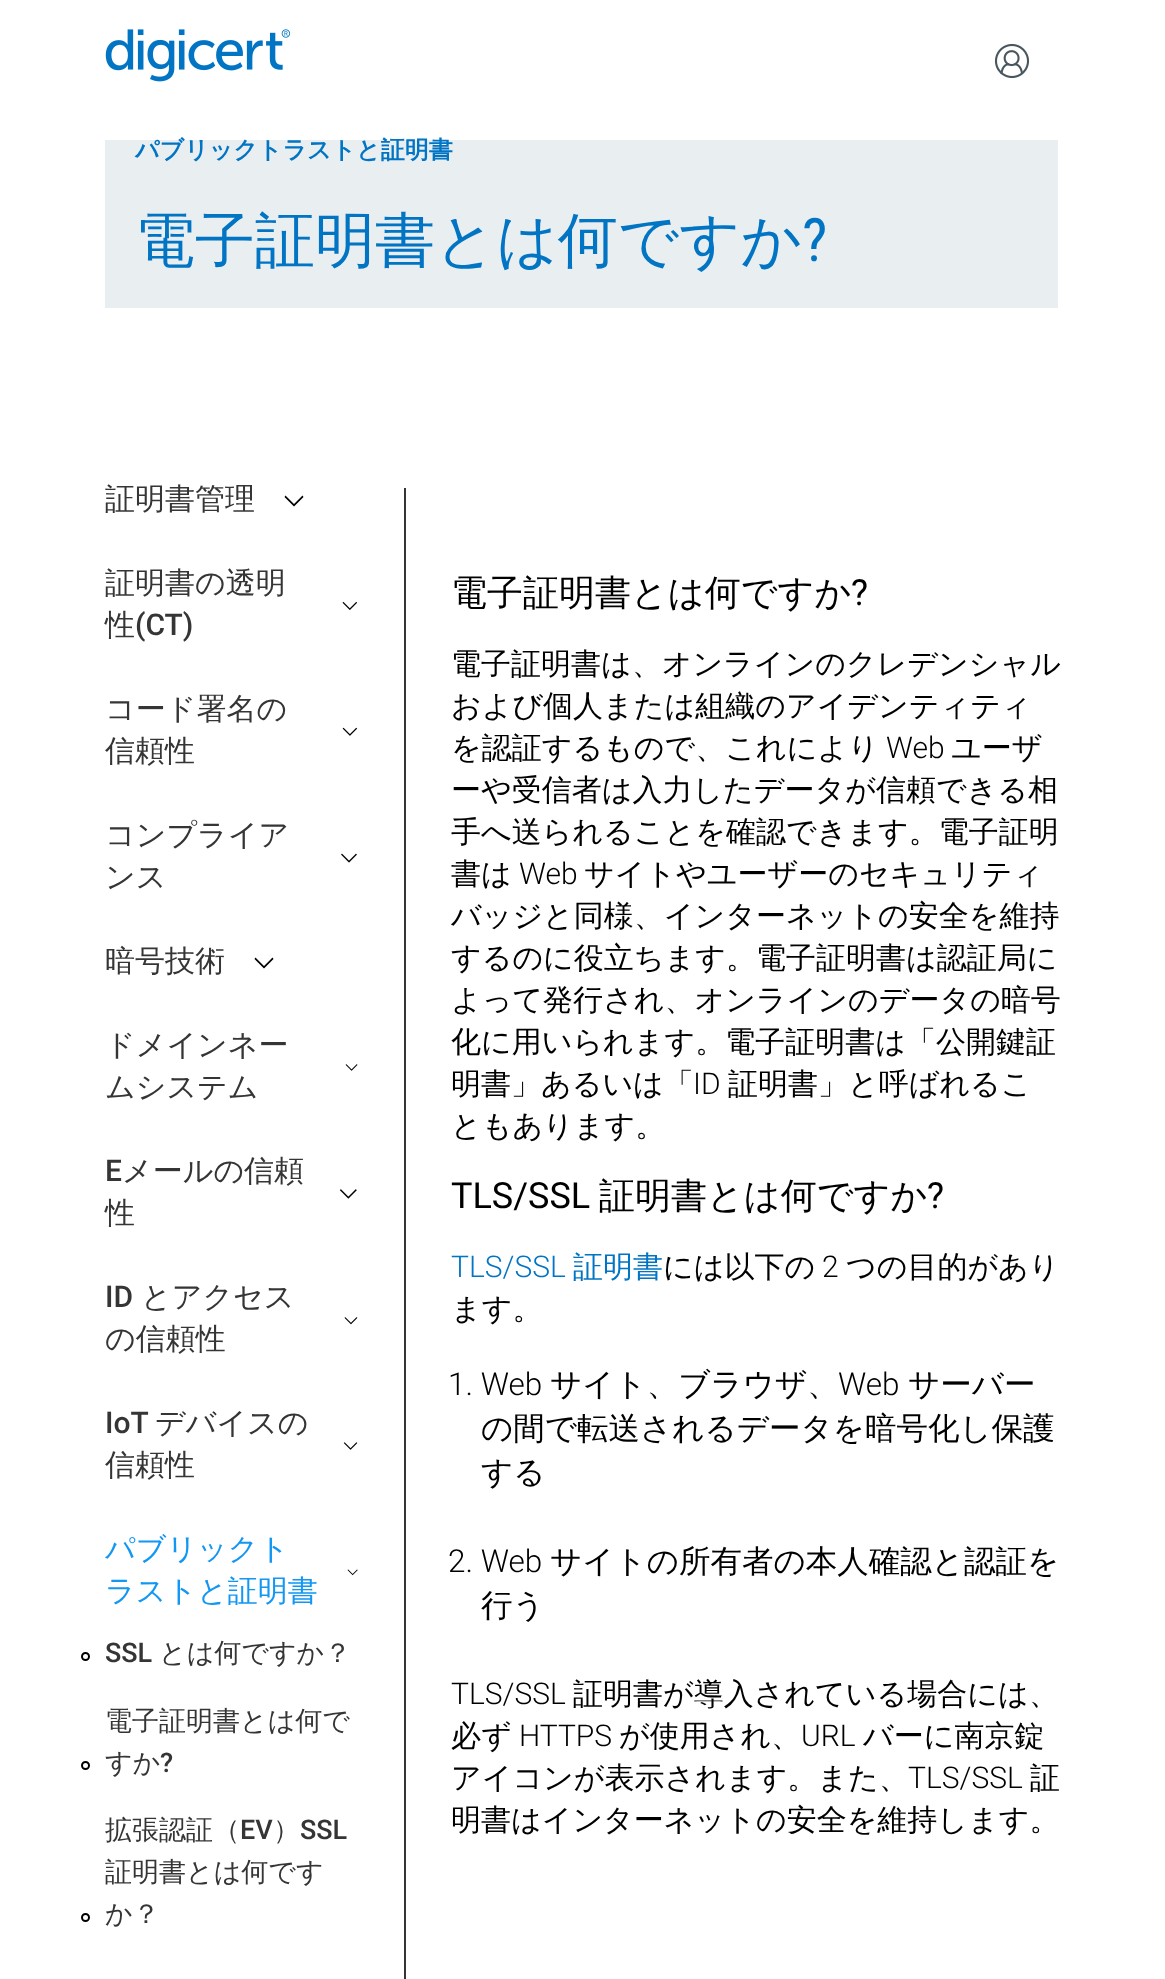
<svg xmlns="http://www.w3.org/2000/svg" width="1165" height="1979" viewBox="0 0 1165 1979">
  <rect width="100%" height="100%" fill="#fff"/>
  <image x="105" y="29" width="186" height="53" href="img/1.png"/>
  <image x="994" y="43" width="36" height="36" href="img/2.png"/>
  <path d="M105 140h953v168H105z" fill="#e9eef1"/>
  <path d="M302.5 495.5L303.5 497L294 506.5L284.5 497L285.5 495.5L294 504Z" fill="#000"/>
  <image x="342" y="601" width="16" height="9" href="img/3.png"/>
  <image x="342" y="727" width="16" height="9" href="img/4.png"/>
  <image x="341" y="853" width="16" height="10" href="img/5.png"/>
  <path d="M272.5 957.5L273.5 959L264 968.5L254.5 959L255.5 957.5L264 966Z" fill="#000"/>
  <image x="345" y="1064" width="13" height="7" href="img/6.png"/>
  <image x="339" y="1189" width="18" height="10" href="img/7.png"/>
  <image x="344" y="1317" width="14" height="8" href="img/8.png"/>
  <image x="343" y="1442" width="15" height="8" href="img/9.png"/>
  <image x="347" y="1569" width="11" height="7" href="img/10.png"/>
  <circle cx="85.5" cy="1656.5" r="3.5" fill="none" stroke="#000" stroke-width="2"/>
  <circle cx="85.5" cy="1765.5" r="3.5" fill="none" stroke="#000" stroke-width="2"/>
  <circle cx="85.5" cy="1917.5" r="3.5" fill="none" stroke="#000" stroke-width="2"/>
  <path d="M404 488h2v1491H404z" fill="#353535"/>
  <text x="135" y="158" font-family="WenQuanYi Zen Hei" font-size="24" font-weight="bold" fill="#0174c3">パブリックトラストと証明書</text>
  <text x="135" y="261" font-family="WenQuanYi Zen Hei" font-size="60" font-weight="500" fill="#0174c3">電子証明書とは何ですか</text>
  <text x="802" y="261" font-family="Roboto Condensed" font-size="60" fill="#0174c3">?</text>
  <g font-family="WenQuanYi Zen Hei" font-size="30" font-weight="500" fill="#353535">
    <text x="105" y="509">証明書管理</text>
    <text x="105" y="593">証明書の透明</text>
    <text x="105" y="635">性</text>
  </g>
  <text x="135" y="635" font-family="Roboto" font-size="30" font-weight="500" fill="#353535">(CT)</text>
  <g font-family="WenQuanYi Zen Hei" font-size="30" font-weight="500" fill="#353535">
    <text x="105" y="719">コード署名の</text>
    <text x="105" y="761">信頼性</text>
    <text x="105" y="845">コンプライア</text>
    <text x="105" y="887">ンス</text>
    <text x="105" y="971">暗号技術</text>
    <text x="105" y="1055">ドメインネー</text>
    <text x="105" y="1097">ムシステム</text>
  </g>
  <text x="105" y="1181" font-family="Roboto" font-size="30" font-weight="500" fill="#353535">E</text>
  <g font-family="WenQuanYi Zen Hei" font-size="30" font-weight="500" fill="#353535">
    <text x="122" y="1181">メールの信頼</text>
    <text x="105" y="1223">性</text>
  </g>
  <text x="105" y="1307" font-family="Roboto" font-size="30" font-weight="500" fill="#353535">ID</text>
  <g font-family="WenQuanYi Zen Hei" font-size="30" font-weight="500" fill="#353535">
    <text x="141" y="1307">とアクセス</text>
    <text x="105" y="1349">の信頼性</text>
  </g>
  <text x="105" y="1433" font-family="Roboto" font-size="30" font-weight="500" fill="#353535">IoT</text>
  <g font-family="WenQuanYi Zen Hei" font-size="30" font-weight="500" fill="#353535">
    <text x="155" y="1433">デバイスの</text>
    <text x="105" y="1475">信頼性</text>
  </g>
  <g font-family="WenQuanYi Zen Hei" font-size="30" font-weight="500" fill="#1297f3">
    <text x="105" y="1559">パブリックト</text>
    <text x="105" y="1601">ラストと証明書</text>
  </g>
  <text x="105" y="1662" font-family="Roboto" font-size="27" font-weight="500" fill="#353535">SSL</text>
  <g font-family="WenQuanYi Zen Hei" font-size="27" font-weight="500" fill="#353535">
    <text x="159" y="1662">とは何ですか？</text>
    <text x="105" y="1730">電子証明書とは何で</text>
    <text x="105" y="1772">すか</text>
  </g>
  <text x="160" y="1772" font-family="Roboto" font-size="27" font-weight="500" fill="#353535">?</text>
  <text x="105" y="1839" font-family="WenQuanYi Zen Hei" font-size="27" font-weight="500" fill="#353535">拡張認証（</text>
  <text x="240" y="1839" font-family="Roboto" font-size="27" font-weight="500" fill="#353535">EV</text>
  <text x="273" y="1839" font-family="WenQuanYi Zen Hei" font-size="27" font-weight="500" fill="#353535">）</text>
  <text x="300" y="1839" font-family="Roboto" font-size="27" font-weight="500" fill="#353535">SSL</text>
  <g font-family="WenQuanYi Zen Hei" font-size="27" font-weight="500" fill="#353535">
    <text x="105" y="1881">証明書とは何です</text>
    <text x="105" y="1923">か？</text>
  </g>
  <text x="451" y="605" font-family="WenQuanYi Zen Hei" font-size="36" font-weight="500" fill="#000">電子証明書とは何ですか</text>
  <text x="851" y="605" font-family="Roboto" font-size="36" fill="#000">?</text>
  <g font-family="WenQuanYi Zen Hei" font-size="30" font-weight="500" fill="#000">
    <text x="451" y="674">電子証明書は、オンラインのクレデンシャル</text>
    <text x="451" y="716">および個人または組織のアイデンティティ</text>
    <text x="451" y="758">を認証するもので、これにより</text>
  </g>
  <text x="886" y="758" font-family="Roboto" font-size="30" font-weight="300" fill="#000">Web</text>
  <g font-family="WenQuanYi Zen Hei" font-size="30" font-weight="500" fill="#000">
    <text x="951" y="758">ユーザ</text>
    <text x="451" y="800">ーや受信者は入力したデータが信頼できる相</text>
    <text x="451" y="842">手へ送られることを確認できます。電子証明</text>
    <text x="451" y="884">書は</text>
  </g>
  <text x="519" y="884" font-family="Roboto" font-size="30" font-weight="300" fill="#000">Web</text>
  <g font-family="WenQuanYi Zen Hei" font-size="30" font-weight="500" fill="#000">
    <text x="584" y="884">サイトやユーザーのセキュリティ</text>
    <text x="451" y="926">バッジと同様、インターネットの安全を維持</text>
    <text x="451" y="968">するのに役立ちます。電子証明書は認証局に</text>
    <text x="451" y="1010">よって発行され、オンラインのデータの暗号</text>
    <text x="451" y="1052">化に用いられます。電子証明書は「公開鍵証</text>
    <text x="451" y="1094">明書」あるいは「</text>
  </g>
  <text x="693" y="1094" font-family="Roboto" font-size="30" font-weight="300" fill="#000">ID</text>
  <g font-family="WenQuanYi Zen Hei" font-size="30" font-weight="500" fill="#000">
    <text x="728" y="1094">証明書」と呼ばれるこ</text>
    <text x="451" y="1136">ともあります。</text>
  </g>
  <text x="451" y="1208" font-family="Roboto" font-size="36" fill="#000">TLS/SSL</text>
  <text x="599" y="1208" font-family="WenQuanYi Zen Hei" font-size="36" font-weight="500" fill="#000">証明書とは何ですか</text>
  <text x="927" y="1208" font-family="Roboto" font-size="36" fill="#000">?</text>
  <text x="451" y="1277" font-family="Roboto" font-size="30" font-weight="300" fill="#0174c3">TLS/SSL</text>
  <text x="573" y="1277" font-family="WenQuanYi Zen Hei" font-size="30" font-weight="500" fill="#0174c3">証明書</text>
  <text x="663" y="1277" font-family="WenQuanYi Zen Hei" font-size="30" font-weight="500" fill="#000">には以下の</text>
  <text x="822" y="1277" font-family="Roboto" font-size="30" font-weight="300" fill="#000">2</text>
  <g font-family="WenQuanYi Zen Hei" font-size="30" font-weight="500" fill="#000">
    <text x="846" y="1277">つの目的があり</text>
    <text x="451" y="1319">ます。</text>
  </g>
  <text x="448" y="1395" font-family="Roboto" font-size="31.5" font-weight="300" fill="#000">1. Web</text>
  <text x="550" y="1395" font-family="WenQuanYi Zen Hei" font-size="31.5" font-weight="500" fill="#000">サイト、ブラウザ、</text>
  <text x="838" y="1395" font-family="Roboto" font-size="31.5" font-weight="300" fill="#000">Web</text>
  <g font-family="WenQuanYi Zen Hei" font-size="31.5" font-weight="500" fill="#000">
    <text x="908" y="1395">サーバー</text>
    <text x="481" y="1439">の間で転送されるデータを暗号化し保護</text>
    <text x="481" y="1483">する</text>
  </g>
  <text x="448" y="1572" font-family="Roboto" font-size="31.5" font-weight="300" fill="#000">2. Web</text>
  <g font-family="WenQuanYi Zen Hei" font-size="31.5" font-weight="500" fill="#000">
    <text x="550" y="1572">サイトの所有者の本人確認と認証を</text>
    <text x="481" y="1616">行う</text>
  </g>
  <text x="451" y="1704" font-family="Roboto" font-size="30" font-weight="300" fill="#000">TLS/SSL</text>
  <g font-family="WenQuanYi Zen Hei" font-size="30" font-weight="500" fill="#000">
    <text x="573" y="1704">証明書が導入されている場合には、</text>
    <text x="451" y="1746">必ず</text>
  </g>
  <text x="519" y="1746" font-family="Roboto" font-size="30" font-weight="300" fill="#000">HTTPS</text>
  <text x="619" y="1746" font-family="WenQuanYi Zen Hei" font-size="30" font-weight="500" fill="#000">が使用され、</text>
  <text x="801" y="1746" font-family="Roboto" font-size="30" font-weight="300" fill="#000">URL</text>
  <g font-family="WenQuanYi Zen Hei" font-size="30" font-weight="500" fill="#000">
    <text x="863" y="1746">バーに南京錠</text>
    <text x="451" y="1788">アイコンが表示されます。また、</text>
  </g>
  <text x="908" y="1788" font-family="Roboto" font-size="30" font-weight="300" fill="#000">TLS/SSL</text>
  <g font-family="WenQuanYi Zen Hei" font-size="30" font-weight="500" fill="#000">
    <text x="1030" y="1788">証</text>
    <text x="451" y="1830">明書はインターネットの安全を維持します。</text>
  </g>
</svg>
